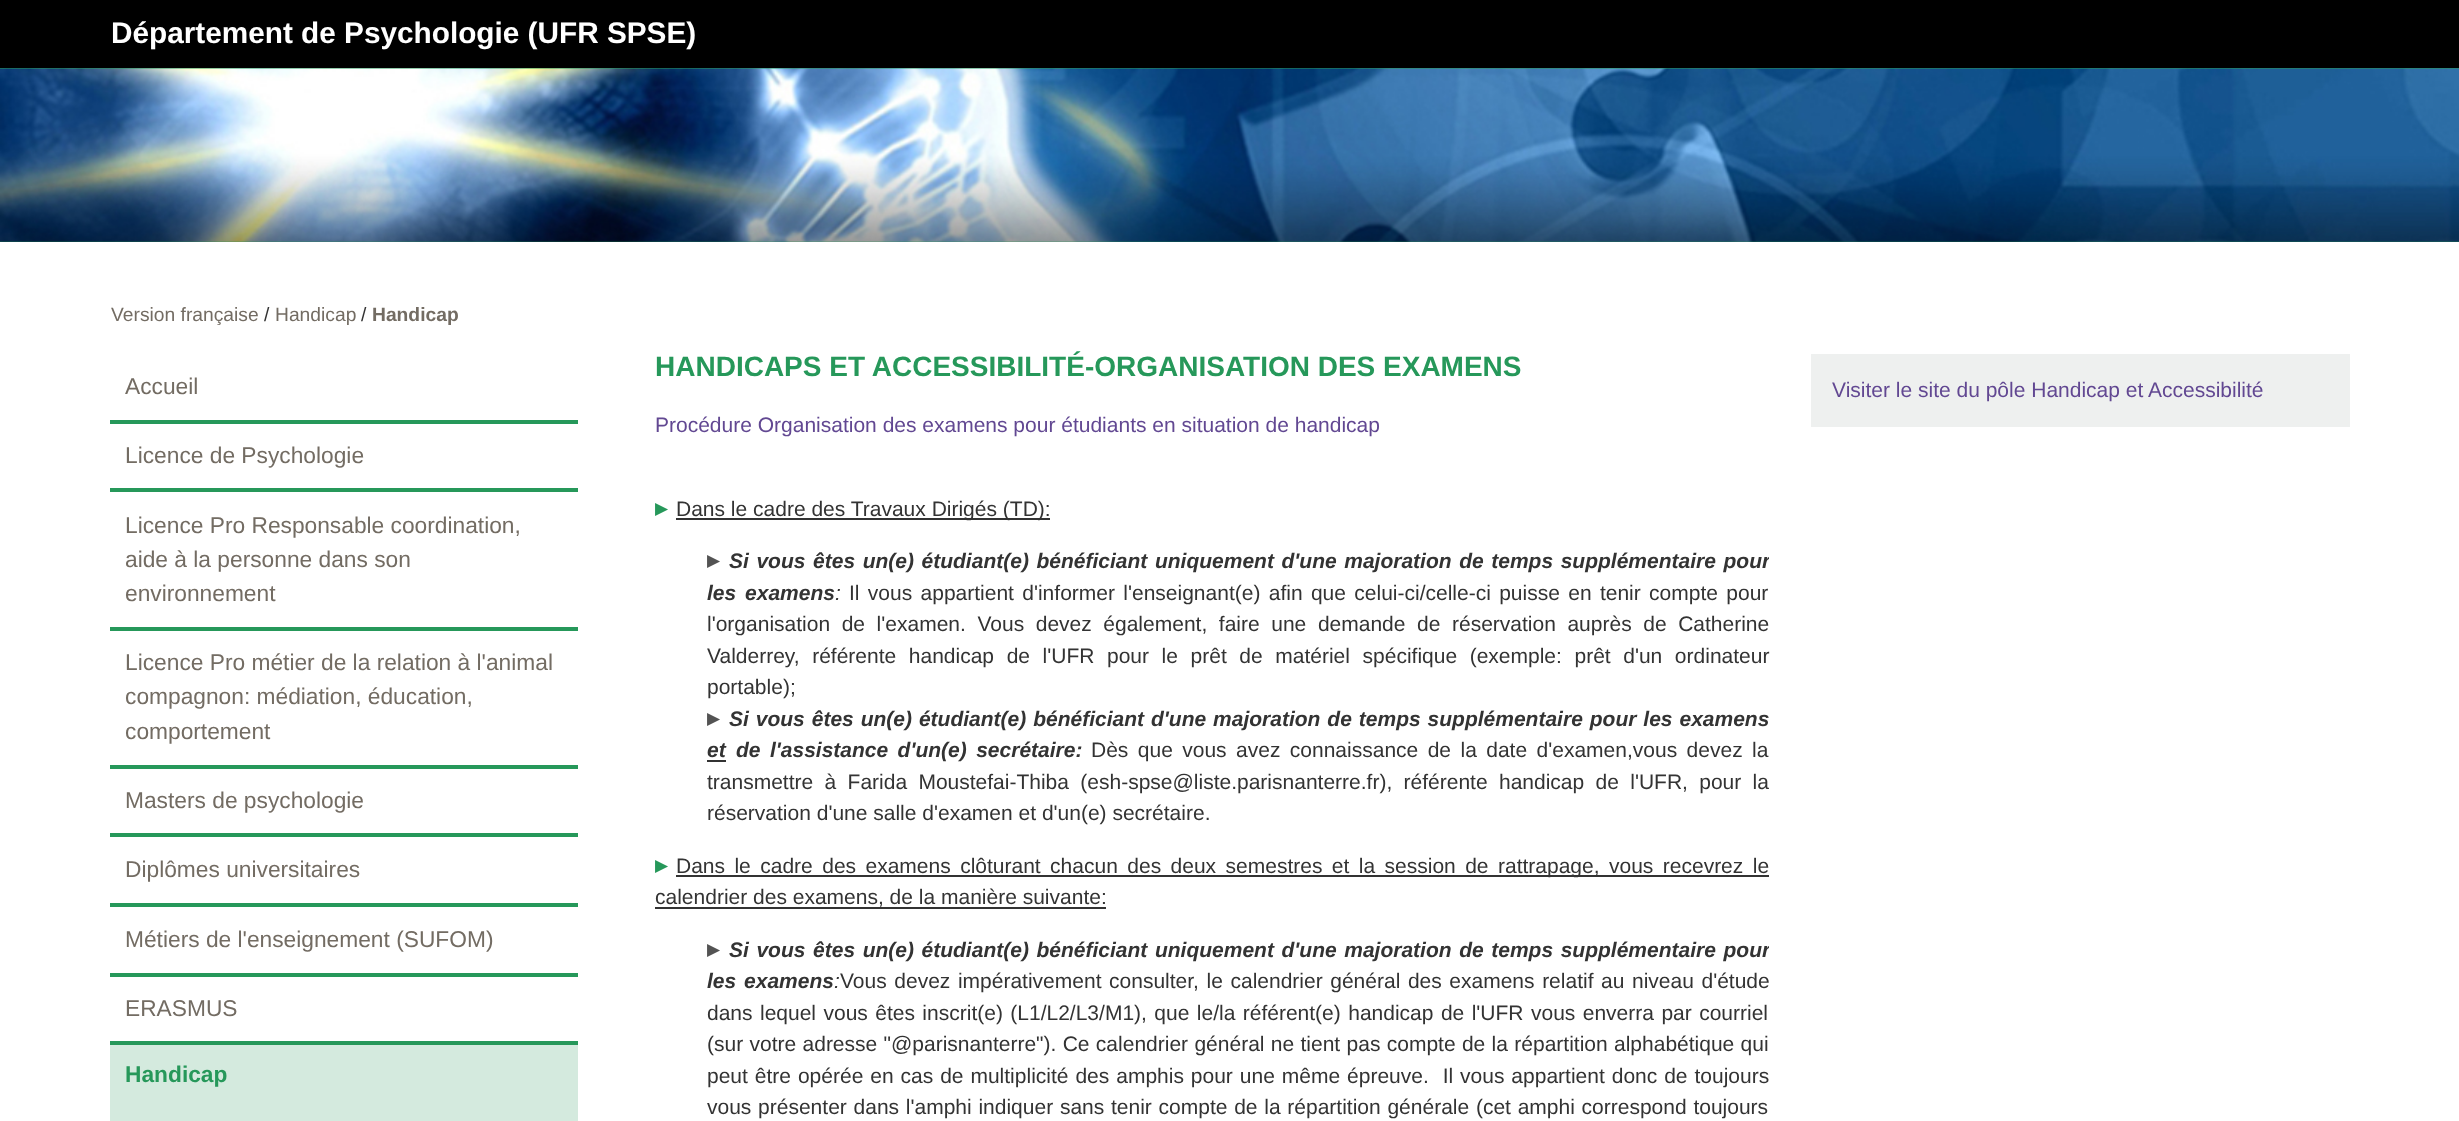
<svg xmlns="http://www.w3.org/2000/svg" width="2459" height="1121" viewBox="0 0 2459 1121">
  <defs>
    <clipPath id="clip1"><path d="M655 546h1114v284H655z"/></clipPath>
    <clipPath id="clip2"><path d="M655 935h1114v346H655z"/></clipPath>
  </defs>
  <rect width="100%" height="100%" fill="#fff"/>
  <path d="M0 0h2459v68H0z" fill="#000"/>
  <path d="M0 68h2459v174H0z" fill="#26985a"/>
  <image x="0" y="68" width="2459" height="174" href="img/1.png"/>
  <path d="M110 420h468v4H110z" fill="#26985a"/>
  <path d="M110 488h468v4H110z" fill="#26985a"/>
  <path d="M110 627h468v4H110z" fill="#26985a"/>
  <path d="M110 765h468v4H110z" fill="#26985a"/>
  <path d="M110 833h468v4H110z" fill="#26985a"/>
  <path d="M110 903h468v4H110z" fill="#26985a"/>
  <path d="M110 973h468v4H110z" fill="#26985a"/>
  <path d="M110 1041h468v4H110z" fill="#26985a"/>
  <path d="M110 1045h468v76H110z" fill="#d4eade"/>
  <path d="M676 518h374v2H676z" fill="#333"/>
  <path d="M707 760h19v2H707z" fill="#333"/>
  <path d="M676 875h1093v2H676z" fill="#333"/>
  <path d="M655 907h451v2H655z" fill="#333"/>
  <path d="M1811 354h539v73H1811z" fill="#eef0ef"/>
  <text x="111" y="43" font-family="Liberation Sans" font-size="29.75" font-weight="bold" fill="#fff">Département de Psychologie (UFR SPSE)</text>
  <text x="111" y="321" font-family="Liberation Sans" font-size="19.25" fill="#736c63">Version française</text>
  <text x="264" y="321" font-family="Liberation Sans" font-size="19.25" fill="#333">/</text>
  <text x="275" y="321" font-family="Liberation Sans" font-size="19.25" fill="#736c63">Handicap</text>
  <text x="361" y="321" font-family="Liberation Sans" font-size="19.25" fill="#333">/</text>
  <text x="372" y="321" font-family="Liberation Sans" font-size="19.25" font-weight="bold" fill="#736c63">Handicap</text>
  <g font-family="Liberation Sans" font-size="22.75" fill="#736c63">
    <text x="125" y="394">Accueil</text>
    <text x="125" y="463">Licence de Psychologie</text>
    <text x="125" y="533">Licence Pro Responsable coordination,</text>
    <text x="125" y="567">aide à la personne dans son</text>
    <text x="125" y="601">environnement</text>
    <text x="125" y="670">Licence Pro métier de la relation à l'animal</text>
    <text x="125" y="704">compagnon: médiation, éducation,</text>
    <text x="125" y="739">comportement</text>
    <text x="125" y="808">Masters de psychologie</text>
    <text x="125" y="877">Diplômes universitaires</text>
    <text x="125" y="947">Métiers de l'enseignement (SUFOM)</text>
    <text x="125" y="1016">ERASMUS</text>
  </g>
  <text x="125" y="1082" font-family="Liberation Sans" font-size="22.75" font-weight="bold" fill="#26985a">Handicap</text>
  <text x="655" y="376" font-family="Liberation Sans" font-size="28" font-weight="bold" fill="#26985a">HANDICAPS ET ACCESSIBILITÉ-ORGANISATION DES EXAMENS</text>
  <text x="655" y="432" font-family="Liberation Sans" font-size="21" fill="#624892">Procédure Organisation des examens pour étudiants en situation de handicap</text>
  <text x="655" y="514" font-family="DejaVu Sans" font-size="17" fill="#26985a">▶</text>
  <text x="676" y="516" font-family="Liberation Sans" font-size="21" fill="#333">Dans le cadre des Travaux Dirigés (TD):</text>
  <text x="707" y="566" font-family="DejaVu Sans" font-size="17" fill="#535353">▶</text>
  <g clip-path="url(#clip1)">
    <text x="729" y="568" word-spacing="1.75" font-family="Liberation Sans" font-size="21" font-weight="bold" font-style="italic" fill="#333">Si vous êtes un(e) étudiant(e) bénéficiant uniquement d'une majoration de temps supplémentaire pour</text>
  </g>
  <text x="707" y="600" word-spacing="3" font-family="Liberation Sans" font-size="21" font-weight="bold" font-style="italic" fill="#333">les examens</text>
  <text x="835" y="600" font-family="Liberation Sans" font-size="21" font-style="italic" fill="#333">:</text>
  <g font-family="Liberation Sans" font-size="21" fill="#333">
    <text x="849" y="600" word-spacing="2.5">Il vous appartient d'informer l'enseignant(e) afin que celui-ci/celle-ci puisse en tenir compte pour</text>
    <text x="707" y="631" word-spacing="5.75">l'organisation de l'examen. Vous devez également, faire une demande de réservation auprès de Catherine</text>
    <text x="707" y="663" word-spacing="6.75">Valderrey, référente handicap de l'UFR pour le prêt de matériel spécifique (exemple: prêt d'un ordinateur</text>
    <text x="707" y="694">portable);</text>
  </g>
  <text x="707" y="724" font-family="DejaVu Sans" font-size="17" fill="#535353">▶</text>
  <g font-family="Liberation Sans" font-size="21" font-weight="bold" font-style="italic" fill="#333">
    <text x="729" y="726" word-spacing="1.1">Si vous êtes un(e) étudiant(e) bénéficiant d'une majoration de temps supplémentaire pour les examens</text>
    <text x="707" y="757">et</text>
    <text x="736" y="757" word-spacing="3.6">de l'assistance d'un(e) secrétaire:</text>
  </g>
  <g font-family="Liberation Sans" font-size="21" fill="#333">
    <text x="1091" y="757" word-spacing="3.6">Dès que vous avez connaissance de la date d'examen,vous devez la</text>
    <text x="707" y="789" word-spacing="5.5">transmettre à Farida Moustefai-Thiba (esh-spse@liste.parisnanterre.fr), référente handicap de l'UFR, pour la</text>
    <text x="707" y="820">réservation d'une salle d'examen et d'un(e) secrétaire.</text>
  </g>
  <text x="655" y="871" font-family="DejaVu Sans" font-size="17" fill="#26985a">▶</text>
  <g font-family="Liberation Sans" font-size="21" fill="#333">
    <text x="676" y="873" word-spacing="3.6">Dans le cadre des examens clôturant chacun des deux semestres et la session de rattrapage, vous recevrez le</text>
    <text x="655" y="904">calendrier des examens, de la manière suivante:</text>
  </g>
  <text x="707" y="955" font-family="DejaVu Sans" font-size="17" fill="#535353">▶</text>
  <g clip-path="url(#clip2)">
    <text x="729" y="957" word-spacing="1.75" font-family="Liberation Sans" font-size="21" font-weight="bold" font-style="italic" fill="#333">Si vous êtes un(e) étudiant(e) bénéficiant uniquement d'une majoration de temps supplémentaire pour</text>
  </g>
  <text x="707" y="988" word-spacing="2" font-family="Liberation Sans" font-size="21" font-weight="bold" font-style="italic" fill="#333">les examens</text>
  <text x="834" y="988" font-family="Liberation Sans" font-size="21" font-style="italic" fill="#333">:</text>
  <g font-family="Liberation Sans" font-size="21" fill="#333">
    <text x="840" y="988" word-spacing="1.75">Vous devez impérativement consulter, le calendrier général des examens relatif au niveau d'étude</text>
    <text x="707" y="1020" word-spacing="1.6">dans lequel vous êtes inscrit(e) (L1/L2/L3/M1), que le/la référent(e) handicap de l'UFR vous enverra par courriel</text>
    <text x="707" y="1051" word-spacing="0.5">(sur votre adresse "@parisnanterre"). Ce calendrier général ne tient pas compte de la répartition alphabétique qui</text>
    <text x="707" y="1083" word-spacing="1.1" xml:space="preserve">peut être opérée en cas de multiplicité des amphis pour une même épreuve.  Il vous appartient donc de toujours</text>
    <text x="707" y="1114" word-spacing="0.9">vous présenter dans l'amphi indiquer sans tenir compte de la répartition générale (cet amphi correspond toujours</text>
  </g>
  <text x="1832" y="397" font-family="Liberation Sans" font-size="21" fill="#624892">Visiter le site du pôle Handicap et Accessibilité</text>
</svg>
